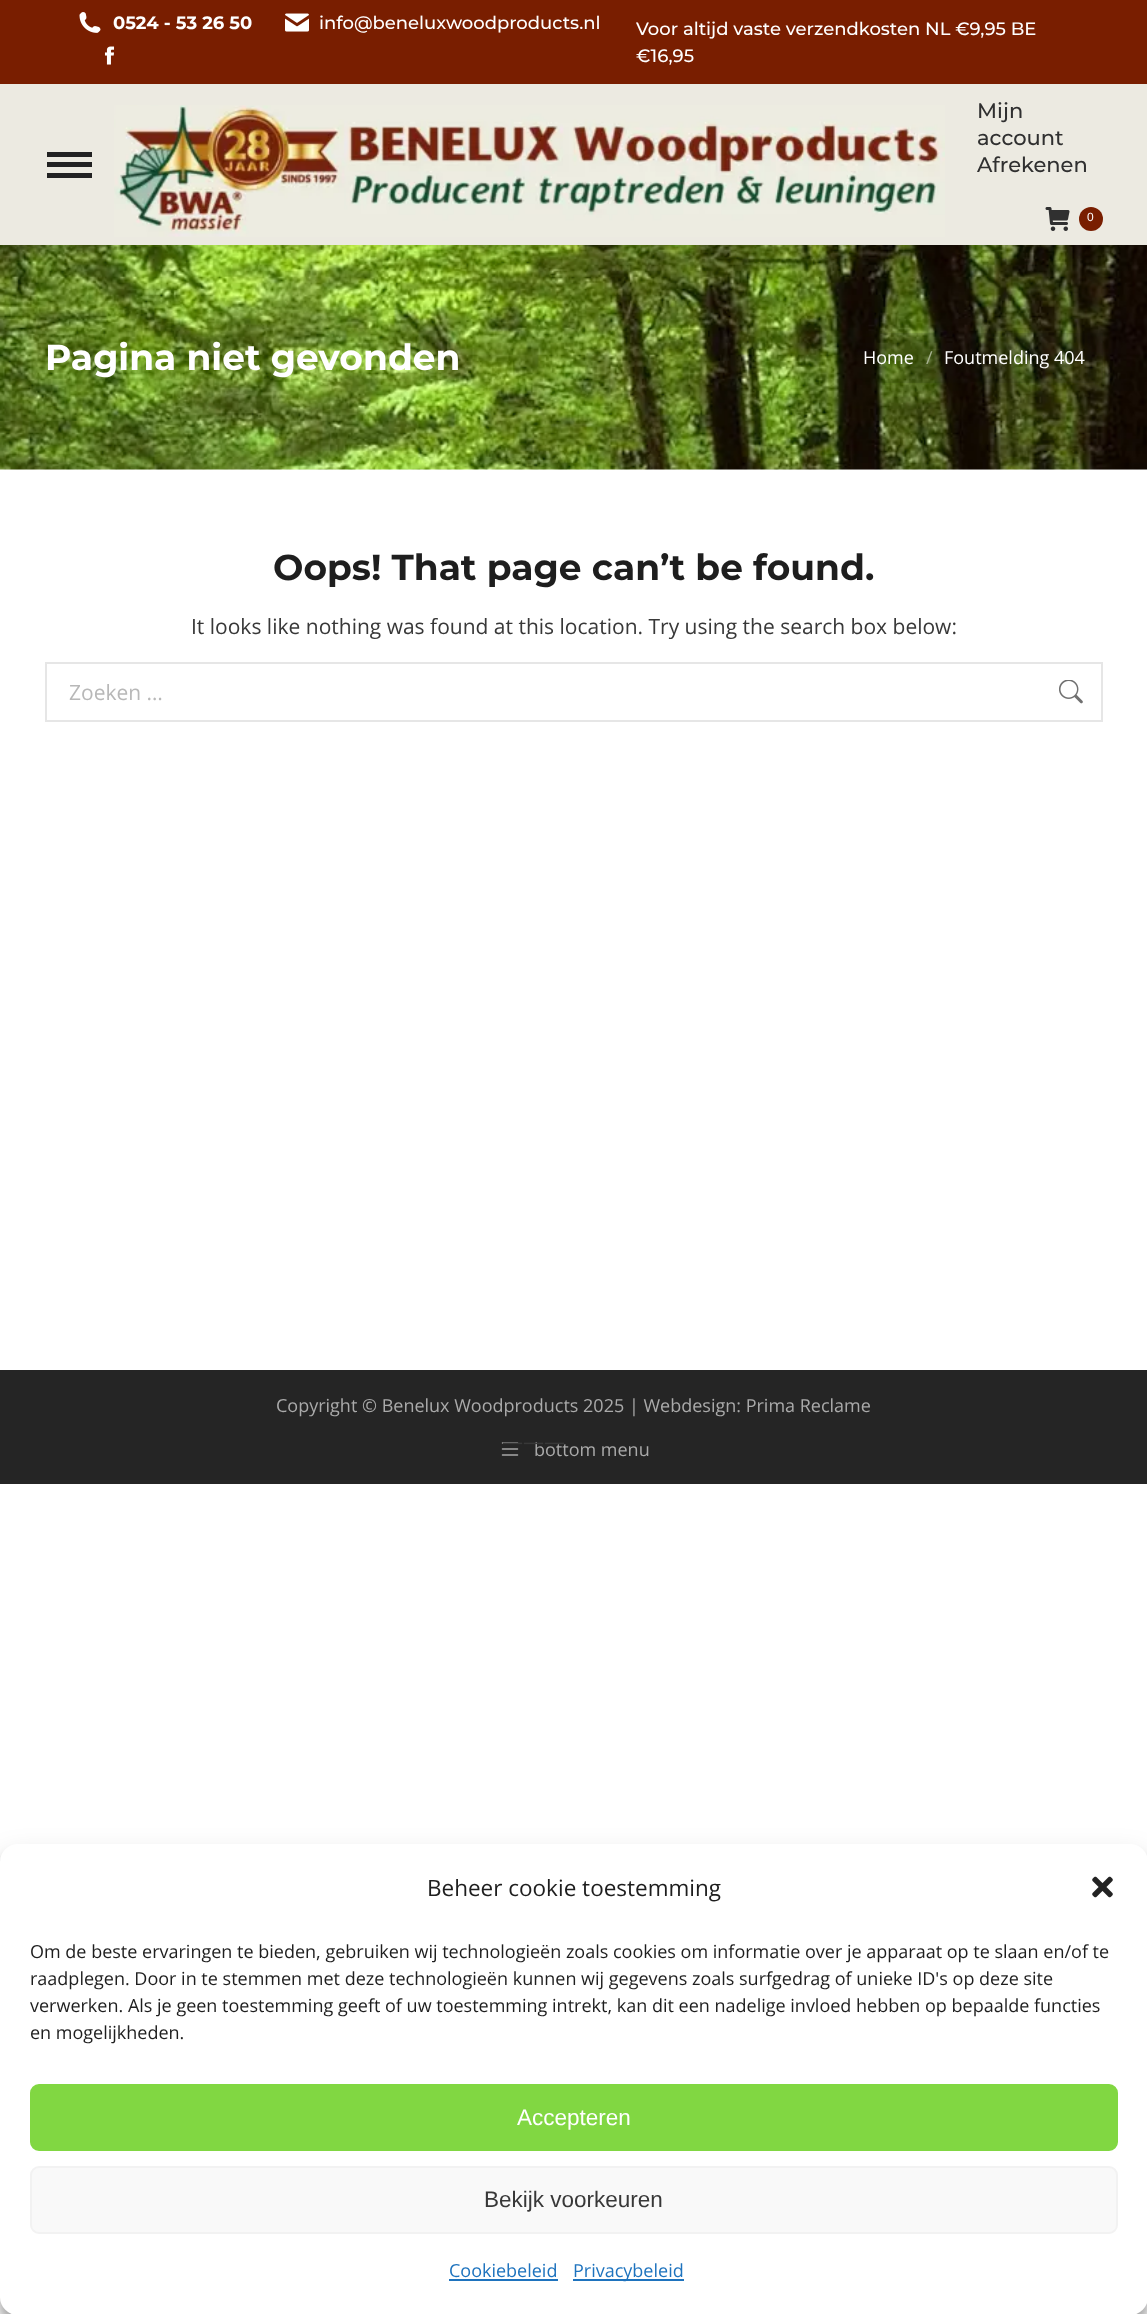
<svg xmlns="http://www.w3.org/2000/svg" width="1147" height="2314" viewBox="0 0 1147 2314">
  <rect width="100%" height="100%" fill="#fff"/>
  <path d="M0 469h1147v1H0z" fill="#f6f6f6"/>
  <image x="0" y="245" width="1147" height="225" href="img/6.png"/>
  <path d="M-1 -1h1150v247H-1z" fill="#00000012" filter="blur(11px)"/>
  <path d="M0 84h1147v161H0z" fill="#eceae1"/>
  <path d="M0 0h1147v84H0z" fill="#791e00"/>
  <image x="79" y="12" width="22" height="21" href="img/1.png"/>
  <image x="285" y="13" width="24" height="19" href="img/2.png"/>
  <image x="104" y="46" width="11" height="19" href="img/3.png"/>
  <path d="M47 152h45v5H47z" fill="#222"/>
  <path d="M47 162h45v5H47z" fill="#222"/>
  <path d="M47 173h45v5H47z" fill="#222"/>
  <image x="114" y="105" width="831" height="132" href="img/4.png"/>
  <image x="1045" y="207" width="25" height="24" href="img/5.png"/>
  <circle cx="1091" cy="219" r="12" fill="#791e00"/>
  <path d="M878 333h225v50H878z" fill="#0f12131a"/>
  <path d="M46 663h1056v58H46z" fill="none" stroke="#e6e6e6" stroke-width="2"/>
  <image x="1059" y="680" width="24" height="24" href="img/7.png"/>
  <path d="M0 1370h1147v114H0z" fill="#252525"/>
  <image x="501" y="1442" width="18" height="14" href="img/8.png"/>
  <rect y="1853" width="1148" height="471" rx="18" fill="#0000003b" filter="blur(4.5px)"/>
  <rect y="1859" width="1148" height="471" rx="18" fill="#00000030" filter="blur(15px)"/>
  <rect y="1844" width="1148" height="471" rx="18" fill="#fff"/>
  <image x="1092" y="1876" width="21" height="22" href="img/9.png"/>
  <rect x="31" y="2085" width="1086" height="65" rx="8" fill="#81d742" stroke="#81d742" stroke-width="2"/>
  <rect x="31" y="2167" width="1086" height="66" rx="8" fill="#f9f9f9" stroke="#f2f2f2" stroke-width="2"/>
  <path d="M449 2279h109v2H449z" fill="#1e73be"/>
  <path d="M573 2279h111v2H573z" fill="#1e73be"/>
  <text x="113" y="29" font-family="Montserrat" font-size="18" font-weight="bold" fill="#fff">0524 - 53 26 50</text>
  <g font-family="Montserrat" font-size="18" font-weight="500" fill="#fff">
    <text x="319" y="29">info@beneluxwoodproducts.nl</text>
    <text x="636" y="35">Voor altijd vaste verzendkosten NL €9,95 BE</text>
    <text x="636" y="62">€16,95</text>
  </g>
  <g font-family="Montserrat" font-size="21" font-weight="500" fill="#303030">
    <text x="977" y="118">Mijn</text>
    <text x="977" y="145">account</text>
    <text x="977" y="172">Afrekenen</text>
  </g>
  <text x="1087" y="221" font-family="Liberation Sans" font-size="12" fill="#fff">0</text>
  <text x="45" y="370" font-family="Montserrat" font-size="36" font-weight="bold" fill="#fff">Pagina niet gevonden</text>
  <text x="863" y="364" font-family="Open Sans" font-size="18" fill="#fff">Home</text>
  <text x="926" y="364" font-family="Open Sans" font-size="18" fill="#a6b191">/</text>
  <text x="944" y="364" font-family="Open Sans" font-size="18" fill="#fff">Foutmelding 404</text>
  <text x="273" y="580" font-family="Montserrat" font-size="36" font-weight="bold" fill="#1e1e1e">Oops! That page can’t be found.</text>
  <text x="191" y="634" font-family="Open Sans" font-size="21" fill="#383838">It looks like nothing was found at this location. Try using the search box below:</text>
  <text x="69" y="700" font-family="Open Sans" font-size="21" fill="#b8b8b8">Zoeken …</text>
  <g font-family="Open Sans" font-size="18" fill="#aaa">
    <text x="276" y="1412">Copyright © Benelux Woodproducts 2025 | Webdesign: Prima Reclame</text>
    <text x="534" y="1456">bottom menu</text>
  </g>
  <text x="502" y="1449" font-family="Open Sans" font-size="21" fill="#383838">———</text>
  <text x="427" y="1896" font-family="Open Sans" font-size="22.5" fill="#1e1e1e">Beheer cookie toestemming</text>
  <g font-family="Open Sans" font-size="18" fill="#1e1e1e">
    <text x="30" y="1958">Om de beste ervaringen te bieden, gebruiken wij technologieën zoals cookies om informatie over je apparaat op te slaan en/of te</text>
    <text x="30" y="1985">raadplegen. Door in te stemmen met deze technologieën kunnen wij gegevens zoals surfgedrag of unieke ID's op deze site</text>
    <text x="30" y="2012">verwerken. Als je geen toestemming geeft of uw toestemming intrekt, kan dit een nadelige invloed hebben op bepaalde functies</text>
    <text x="30" y="2039">en mogelijkheden.</text>
  </g>
  <text x="517" y="2125" font-family="Liberation Sans" font-size="22.5" fill="#fff">Accepteren</text>
  <text x="484" y="2207" font-family="Liberation Sans" font-size="22.5" fill="#383838">Bekijk voorkeuren</text>
  <g font-family="Open Sans" font-size="18" fill="#1e73be">
    <text x="449" y="2277">Cookiebeleid</text>
    <text x="573" y="2277">Privacybeleid</text>
  </g>
</svg>
